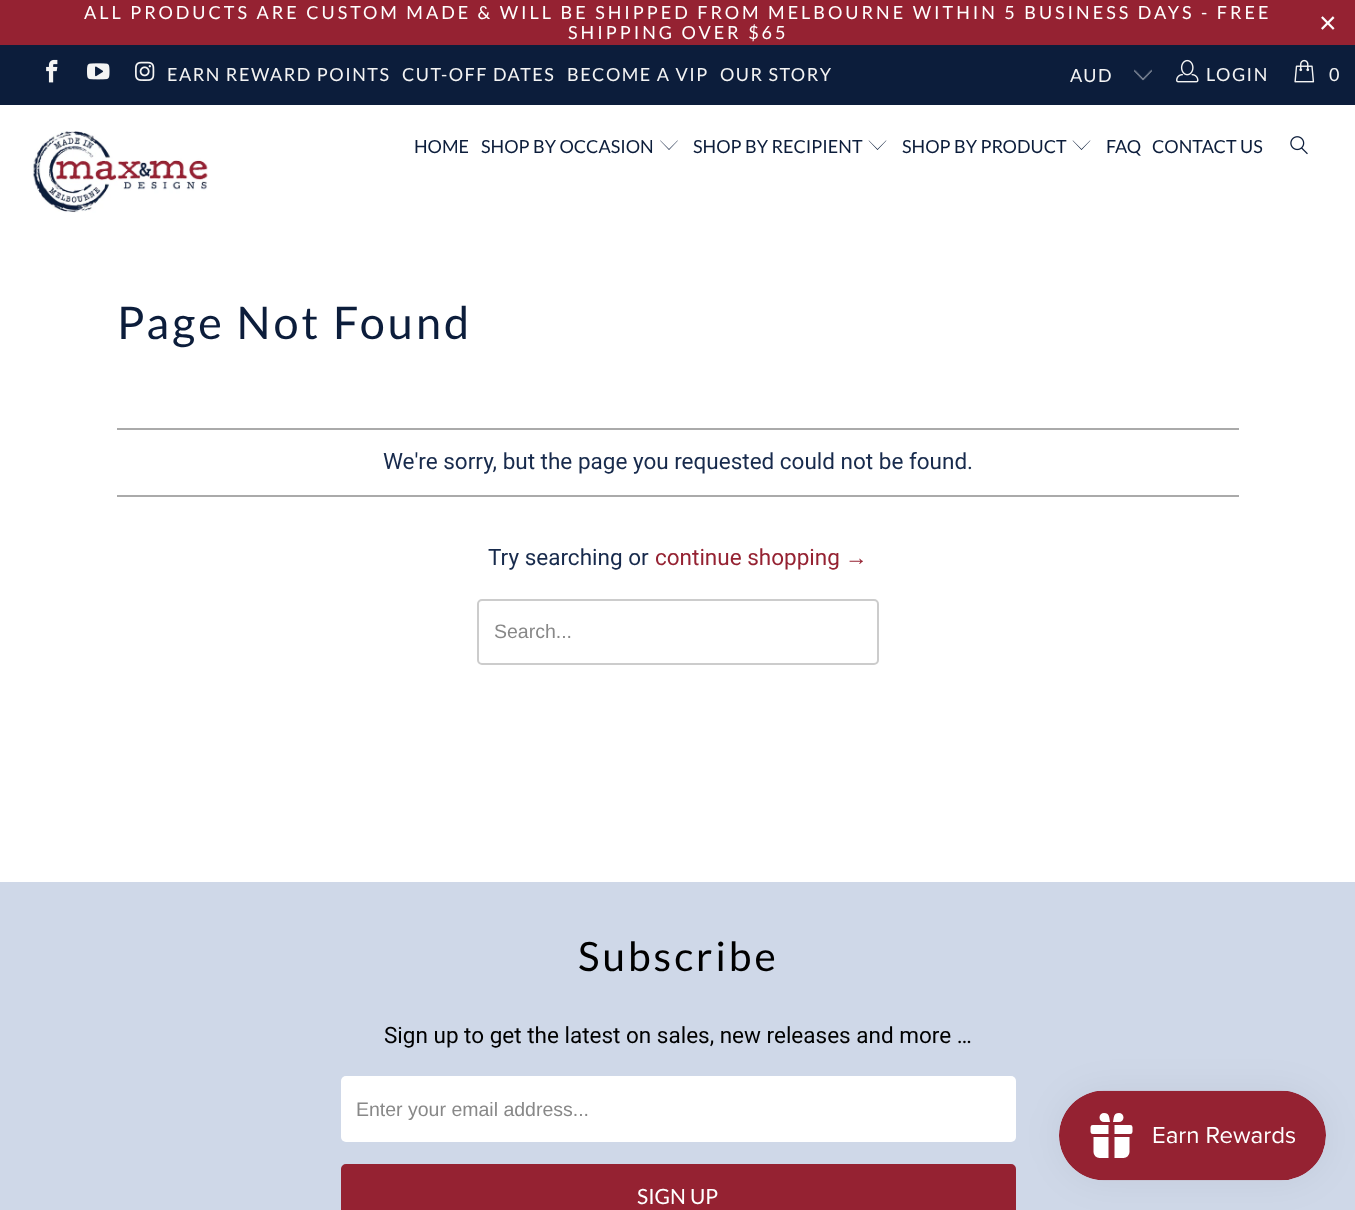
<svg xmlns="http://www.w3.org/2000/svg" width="1355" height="1210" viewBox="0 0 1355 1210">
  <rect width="100%" height="100%" fill="#fff"/>
  <path d="M0 0h1355v45H0z" fill="#952232"/>
  <path d="M0 45h1355v60H0z" fill="#0c1d3b"/>
  <image x="46" y="59" width="12" height="24" href="img/1.png"/>
  <image x="87" y="63" width="23" height="17" href="img/2.png"/>
  <image x="135" y="61" width="20" height="20" href="img/3.png"/>
  <image x="1134" y="69" width="18" height="12" href="img/4.png"/>
  <image x="1176" y="59" width="23" height="24" href="img/5.png"/>
  <image x="1294" y="59" width="21" height="24" href="img/6.png"/>
  <image x="32" y="131" width="176" height="82" href="img/7.png"/>
  <path d="M669 150L660 140.5H660.5L669 149L677.5 140.5H678Z" fill="#0c1d3b"/>
  <path d="M877.5 150L868.5 140.5H869L877.5 149L886 140.5H886.5Z" fill="#0c1d3b"/>
  <path d="M1081.5 150L1072.5 140.5H1073L1081.5 149L1090 140.5H1090.5Z" fill="#0c1d3b"/>
  <image x="1290" y="136" width="18" height="19" href="img/8.png"/>
  <path d="M117 428h1122v2H117z" fill="#aaa"/>
  <path d="M117 495h1122v2H117z" fill="#aaa"/>
  <rect x="478" y="600" width="400" height="64" rx="4" fill="none" stroke="#ccc" stroke-width="2"/>
  <path d="M0 882h1355v328H0z" fill="#cfd8e8"/>
  <rect x="341" y="1076" width="675" height="66" rx="5" fill="#fff"/>
  <rect x="342" y="1165" width="673" height="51" rx="4" fill="#952232" stroke="#952232" stroke-width="2"/>
  <rect x="1059" y="1091" width="267" height="90" rx="45" fill="#0000000d" filter="blur(19px)"/>
  <image x="1059" y="1090" width="267" height="91" href="img/9.png"/>
  <g font-family="Lato" font-size="18" letter-spacing="3" fill="#fff">
    <text x="84" y="19">ALL PRODUCTS ARE CUSTOM MADE &amp; WILL BE SHIPPED FROM MELBOURNE WITHIN 5 BUSINESS DAYS - FREE</text>
    <text x="568" y="39">SHIPPING OVER $65</text>
  </g>
  <text x="1319" y="33" font-family="Liberation Sans" font-size="30" letter-spacing="3" fill="#fff">×</text>
  <g font-family="Lato" font-size="18" letter-spacing="1.5" fill="#f4f4f4">
    <text x="167" y="81">EARN REWARD POINTS</text>
    <text x="402" y="81">CUT-OFF DATES</text>
    <text x="567" y="81">BECOME A VIP</text>
    <text x="720" y="81">OUR STORY</text>
    <text x="1070" y="82">AUD</text>
    <text x="1206" y="81">LOGIN</text>
    <text x="1329" y="81">0</text>
  </g>
  <g font-family="Lato" font-size="18" fill="#0c1d3b">
    <text x="414" y="153">HOME</text>
    <text x="481" y="153">SHOP BY OCCASION</text>
    <text x="693" y="153">SHOP BY RECIPIENT</text>
    <text x="902" y="153">SHOP BY PRODUCT</text>
    <text x="1106" y="153">FAQ</text>
    <text x="1152" y="153">CONTACT US</text>
  </g>
  <text x="117" y="339" font-family="Lato" font-size="45" letter-spacing="3" fill="#0c1d3b">Page Not Found</text>
  <g font-family="Roboto" font-size="22.5" fill="#172a4c">
    <text x="383" y="469">We're sorry, but the page you requested could not be found.</text>
    <text x="488" y="565">Try searching or</text>
  </g>
  <text x="655" y="565" font-family="Roboto" font-size="22.5" fill="#952232">continue shopping</text>
  <text x="845" y="565" font-family="Liberation Serif" font-size="22.5" fill="#952232">→</text>
  <text x="494" y="638" font-family="Liberation Sans" font-size="19.5" fill="#888">Search...</text>
  <text x="578" y="971" font-family="Lato" font-size="40.5" letter-spacing="3" fill="#000">Subscribe</text>
  <text x="384" y="1043" font-family="Roboto" font-size="22.5" fill="#000">Sign up to get the latest on sales, new releases and more …</text>
  <text x="356" y="1116" font-family="Liberation Sans" font-size="19.5" fill="#888">Enter your email address...</text>
  <text x="637" y="1204" font-family="Lato" font-size="21" fill="#fff">SIGN UP</text>
</svg>
